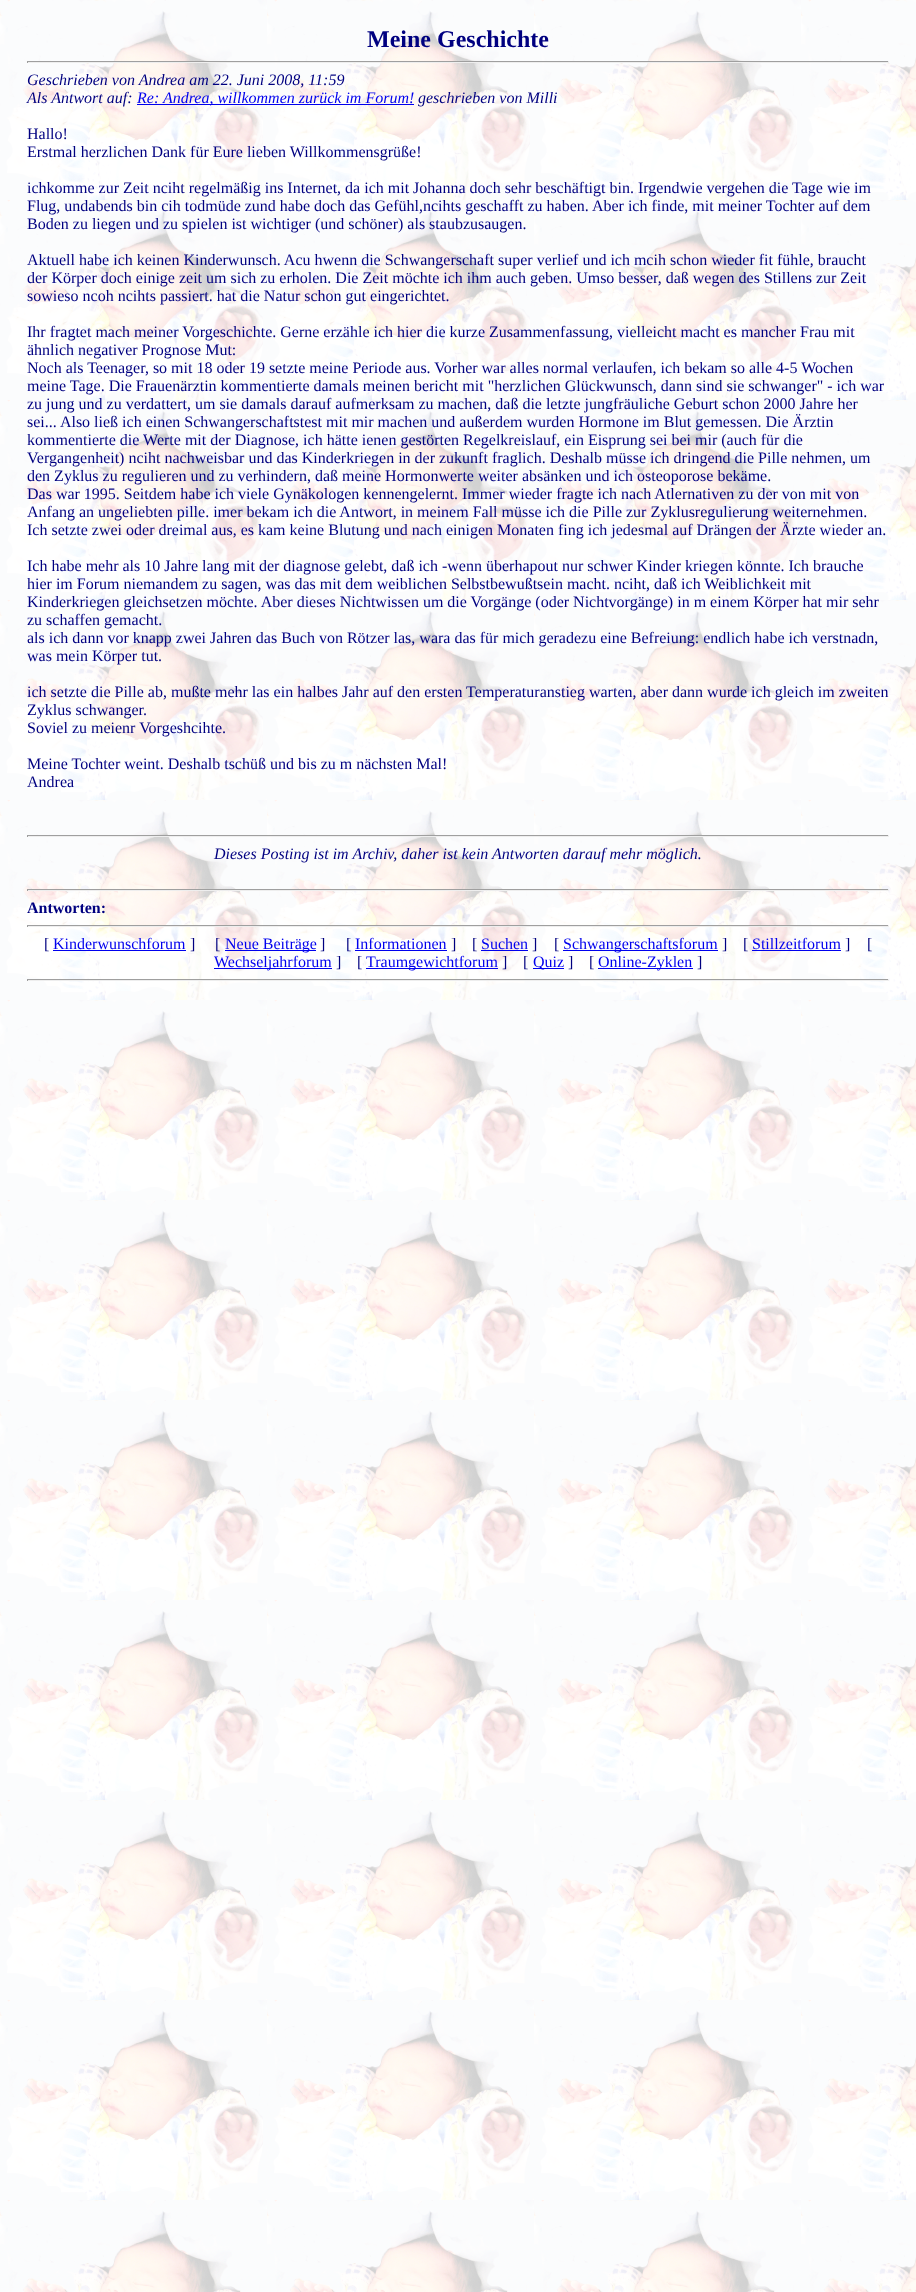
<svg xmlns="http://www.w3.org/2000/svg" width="916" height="2292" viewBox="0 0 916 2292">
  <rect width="100%" height="100%" fill="#fff"/>
  <image x="0" y="0" width="916" height="2292" href="img/1.png"/>
  <path d="M27 61h862v1H27z" fill="#9f9f9f"/>
  <path d="M888 61h1v2H888z" fill="#eee"/>
  <path d="M27 62h862v1H27z" fill="#eee"/>
  <path d="M27 61h1v2H27z" fill="#9f9f9f"/>
  <path d="M137 104h277v1H137z" fill="#00e"/>
  <path d="M27 835h862v1H27z" fill="#9f9f9f"/>
  <path d="M888 835h1v2H888z" fill="#eee"/>
  <path d="M27 836h862v1H27z" fill="#eee"/>
  <path d="M27 835h1v2H27z" fill="#9f9f9f"/>
  <path d="M27 889h862v1H27z" fill="#9f9f9f"/>
  <path d="M888 889h1v2H888z" fill="#eee"/>
  <path d="M27 890h862v1H27z" fill="#eee"/>
  <path d="M27 889h1v2H27z" fill="#9f9f9f"/>
  <path d="M27 925h862v1H27z" fill="#9f9f9f"/>
  <path d="M888 925h1v2H888z" fill="#eee"/>
  <path d="M27 926h862v1H27z" fill="#eee"/>
  <path d="M27 925h1v2H27z" fill="#9f9f9f"/>
  <path d="M53 950h133v1H53z" fill="#00e"/>
  <path d="M225 950h91v1H225z" fill="#00e"/>
  <path d="M355 950h92v1H355z" fill="#00e"/>
  <path d="M481 950h47v1H481z" fill="#00e"/>
  <path d="M563 950h155v1H563z" fill="#00e"/>
  <path d="M752 950h89v1H752z" fill="#00e"/>
  <path d="M214 968h118v1H214z" fill="#00e"/>
  <path d="M366 968h132v1H366z" fill="#00e"/>
  <path d="M533 968h31v1H533z" fill="#00e"/>
  <path d="M598 968h95v1H598z" fill="#00e"/>
  <path d="M27 979h862v1H27z" fill="#9f9f9f"/>
  <path d="M888 979h1v2H888z" fill="#eee"/>
  <path d="M27 980h862v1H27z" fill="#eee"/>
  <path d="M27 979h1v2H27z" fill="#9f9f9f"/>
  <text x="367" y="47" font-family="Liberation Serif" font-size="24" font-weight="bold" fill="#000080">Meine Geschichte</text>
  <g font-family="Liberation Serif" font-size="16" font-style="italic" fill="#000080">
    <text x="27" y="85">Geschrieben von Andrea am 22. Juni 2008, 11:59</text>
    <text x="27" y="103">Als Antwort auf:</text>
  </g>
  <text x="137" y="103" font-family="Liberation Serif" font-size="16" font-style="italic" fill="#00e">Re: Andrea, willkommen zurück im Forum!</text>
  <text x="418" y="103" font-family="Liberation Serif" font-size="16" font-style="italic" fill="#000080">geschrieben von Milli</text>
  <g font-family="Liberation Serif" font-size="16" fill="#000080">
    <text x="27" y="139">Hallo!</text>
    <text x="27" y="157">Erstmal herzlichen Dank für Eure lieben Willkommensgrüße!</text>
    <text x="27" y="193">ichkomme zur Zeit nciht regelmäßig ins Internet, da ich mit Johanna doch sehr beschäftigt bin. Irgendwie vergehen die Tage wie im</text>
    <text x="27" y="211">Flug, undabends bin cih todmüde zund habe doch das Gefühl,ncihts geschafft zu haben. Aber ich finde, mit meiner Tochter auf dem</text>
    <text x="27" y="229">Boden zu liegen und zu spielen ist wichtiger (und schöner) als staubzusaugen.</text>
    <text x="27" y="265">Aktuell habe ich keinen Kinderwunsch. Acu hwenn die Schwangerschaft super verlief und ich mcih schon wieder fit fühle, braucht</text>
    <text x="27" y="283">der Körper doch einige zeit um sich zu erholen. Die Zeit möchte ich ihm auch geben. Umso besser, daß wegen des Stillens zur Zeit</text>
    <text x="27" y="301">sowieso ncoh ncihts passiert. hat die Natur schon gut eingerichtet.</text>
    <text x="27" y="337">Ihr fragtet mach meiner Vorgeschichte. Gerne erzähle ich hier die kurze Zusammenfassung, vielleicht macht es mancher Frau mit</text>
    <text x="27" y="355">ähnlich negativer Prognose Mut:</text>
    <text x="27" y="373">Noch als Teenager, so mit 18 oder 19 setzte meine Periode aus. Vorher war alles normal verlaufen, ich bekam so alle 4-5 Wochen</text>
    <text x="27" y="391">meine Tage. Die Frauenärztin kommentierte damals meinen bericht mit "herzlichen Glückwunsch, dann sind sie schwanger" - ich war</text>
    <text x="27" y="409">zu jung und zu verdattert, um sie damals darauf aufmerksam zu machen, daß die letzte jungfräuliche Geburt schon 2000 Jahre her</text>
    <text x="27" y="427">sei... Also ließ ich einen Schwangerschaftstest mit mir machen und außerdem wurden Hormone im Blut gemessen. Die Ärztin</text>
    <text x="27" y="445">kommentierte die Werte mit der Diagnose, ich hätte ienen gestörten Regelkreislauf, ein Eisprung sei bei mir (auch für die</text>
    <text x="27" y="463">Vergangenheit) nciht nachweisbar und das Kinderkriegen in der zukunft fraglich. Deshalb müsse ich dringend die Pille nehmen, um</text>
    <text x="27" y="481">den Zyklus zu regulieren und zu verhindern, daß meine Hormonwerte weiter absänken und ich osteoporose bekäme.</text>
    <text x="27" y="499">Das war 1995. Seitdem habe ich viele Gynäkologen kennengelernt. Immer wieder fragte ich nach Atlernativen zu der von mit von</text>
    <text x="27" y="517">Anfang an ungeliebten pille. imer bekam ich die Antwort, in meinem Fall müsse ich die Pille zur Zyklusregulierung weiternehmen.</text>
    <text x="27" y="535">Ich setzte zwei oder dreimal aus, es kam keine Blutung und nach einigen Monaten fing ich jedesmal auf Drängen der Ärzte wieder an.</text>
    <text x="27" y="571">Ich habe mehr als 10 Jahre lang mit der diagnose gelebt, daß ich -wenn überhapout nur schwer Kinder kriegen könnte. Ich brauche</text>
    <text x="27" y="589">hier im Forum niemandem zu sagen, was das mit dem weiblichen Selbstbewußtsein macht. nciht, daß ich Weiblichkeit mit</text>
    <text x="27" y="607">Kinderkriegen gleichsetzen möchte. Aber dieses Nichtwissen um die Vorgänge (oder Nichtvorgänge) in m einem Körper hat mir sehr</text>
    <text x="27" y="625">zu schaffen gemacht.</text>
    <text x="27" y="643">als ich dann vor knapp zwei Jahren das Buch von Rötzer las, wara das für mich geradezu eine Befreiung: endlich habe ich verstnadn,</text>
    <text x="27" y="661">was mein Körper tut.</text>
    <text x="27" y="697">ich setzte die Pille ab, mußte mehr las ein halbes Jahr auf den ersten Temperaturanstieg warten, aber dann wurde ich gleich im zweiten</text>
    <text x="27" y="715">Zyklus schwanger.</text>
    <text x="27" y="733">Soviel zu meienr Vorgeshcihte.</text>
    <text x="27" y="769">Meine Tochter weint. Deshalb tschüß und bis zu m nächsten Mal!</text>
    <text x="27" y="787">Andrea</text>
  </g>
  <text x="214" y="859" font-family="Liberation Serif" font-size="16" font-style="italic" fill="#000080">Dieses Posting ist im Archiv, daher ist kein Antworten darauf mehr möglich.</text>
  <text x="27" y="913" font-family="Liberation Serif" font-size="16" font-weight="bold" fill="#000080">Antworten:</text>
  <text x="44" y="949" font-family="Liberation Serif" font-size="16" fill="#000080">[</text>
  <text x="53" y="949" font-family="Liberation Serif" font-size="16" fill="#00e">Kinderwunschforum</text>
  <g font-family="Liberation Serif" font-size="16" fill="#000080">
    <text x="190" y="949">]</text>
    <text x="215" y="949">[</text>
  </g>
  <text x="225" y="949" font-family="Liberation Serif" font-size="16" fill="#00e">Neue Beiträge</text>
  <g font-family="Liberation Serif" font-size="16" fill="#000080">
    <text x="320" y="949">]</text>
    <text x="346" y="949">[</text>
  </g>
  <text x="355" y="949" font-family="Liberation Serif" font-size="16" fill="#00e">Informationen</text>
  <g font-family="Liberation Serif" font-size="16" fill="#000080">
    <text x="451" y="949">]</text>
    <text x="472" y="949">[</text>
  </g>
  <text x="481" y="949" font-family="Liberation Serif" font-size="16" fill="#00e">Suchen</text>
  <g font-family="Liberation Serif" font-size="16" fill="#000080">
    <text x="532" y="949">]</text>
    <text x="554" y="949">[</text>
  </g>
  <text x="563" y="949" font-family="Liberation Serif" font-size="16" fill="#00e">Schwangerschaftsforum</text>
  <g font-family="Liberation Serif" font-size="16" fill="#000080">
    <text x="722" y="949">]</text>
    <text x="743" y="949">[</text>
  </g>
  <text x="752" y="949" font-family="Liberation Serif" font-size="16" fill="#00e">Stillzeitforum</text>
  <g font-family="Liberation Serif" font-size="16" fill="#000080">
    <text x="845" y="949">]</text>
    <text x="867" y="949">[</text>
  </g>
  <text x="214" y="967" font-family="Liberation Serif" font-size="16" fill="#00e">Wechseljahrforum</text>
  <g font-family="Liberation Serif" font-size="16" fill="#000080">
    <text x="336" y="967">]</text>
    <text x="357" y="967">[</text>
  </g>
  <text x="366" y="967" font-family="Liberation Serif" font-size="16" fill="#00e">Traumgewichtforum</text>
  <g font-family="Liberation Serif" font-size="16" fill="#000080">
    <text x="502" y="967">]</text>
    <text x="523" y="967">[</text>
  </g>
  <text x="533" y="967" font-family="Liberation Serif" font-size="16" fill="#00e">Quiz</text>
  <g font-family="Liberation Serif" font-size="16" fill="#000080">
    <text x="568" y="967">]</text>
    <text x="589" y="967">[</text>
  </g>
  <text x="598" y="967" font-family="Liberation Serif" font-size="16" fill="#00e">Online-Zyklen</text>
  <text x="697" y="967" font-family="Liberation Serif" font-size="16" fill="#000080">]</text>
</svg>
